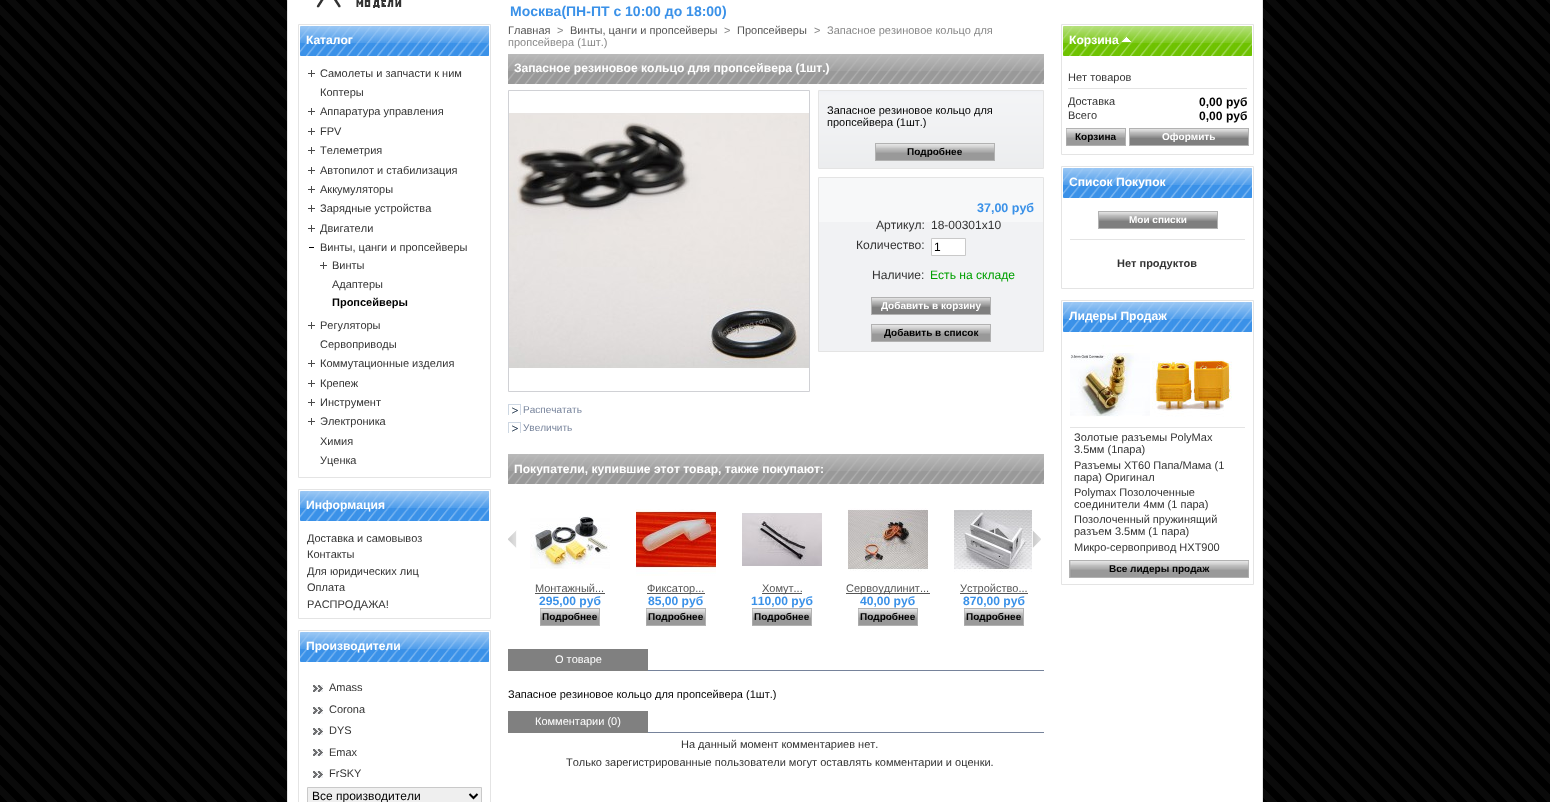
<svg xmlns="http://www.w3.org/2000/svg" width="1550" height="802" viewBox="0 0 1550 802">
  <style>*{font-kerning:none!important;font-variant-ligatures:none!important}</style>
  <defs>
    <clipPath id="clip1"><path d="M827 104h208v24H827z"/></clipPath>
    <clipPath id="clip2"><path d="M508 688h536v12H508z"/></clipPath>
    <clipPath id="clip3"><path d="M508 738h536v12H508z"/></clipPath>
    <clipPath id="clip4"><path d="M508 756h536v12H508z"/></clipPath>
  </defs>
  <rect width="100%" height="100%" fill="#fff"/>
  <image x="0" y="0" width="1550" height="802" href="img/1.png"/>
  <path d="M288 0h974v802H288z" fill="#fff"/>
  <path d="M1262 0h1v802H1262z" fill="#e4e4e4"/>
  <path d="M287 0h1v802H287z" fill="#e4e4e4"/>
  <image x="316" y="0" width="86" height="8" href="img/2.png"/>
  <path d="M298.5 24.5h192v453H298.5z" fill="none" stroke="#e4e4e4"/>
  <image x="300" y="26" width="189" height="30" href="img/3.png"/>
  <image x="308" y="70" width="7" height="7" href="img/4.png"/>
  <image x="308" y="108" width="7" height="7" href="img/4.png"/>
  <image x="308" y="128" width="7" height="7" href="img/4.png"/>
  <image x="308" y="147" width="7" height="7" href="img/4.png"/>
  <image x="308" y="167" width="7" height="7" href="img/4.png"/>
  <image x="308" y="186" width="7" height="7" href="img/4.png"/>
  <image x="308" y="205" width="7" height="7" href="img/4.png"/>
  <image x="308" y="225" width="7" height="7" href="img/4.png"/>
  <path d="M309 247h5v1H309z" fill="#000"/>
  <image x="320" y="262" width="7" height="7" href="img/4.png"/>
  <image x="308" y="322" width="7" height="7" href="img/4.png"/>
  <image x="308" y="360" width="7" height="7" href="img/4.png"/>
  <image x="308" y="380" width="7" height="7" href="img/4.png"/>
  <image x="308" y="399" width="7" height="7" href="img/4.png"/>
  <image x="308" y="418" width="7" height="7" href="img/4.png"/>
  <path d="M298.5 489.5h192v129H298.5z" fill="none" stroke="#e4e4e4"/>
  <image x="300" y="491" width="189" height="30" href="img/3.png"/>
  <path d="M298.5 630.5h192v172H298.5z" fill="none" stroke="#e4e4e4"/>
  <image x="300" y="632" width="189" height="30" href="img/3.png"/>
  <image x="313" y="685" width="10" height="7" href="img/5.png"/>
  <image x="313" y="707" width="10" height="7" href="img/5.png"/>
  <image x="313" y="728" width="10" height="7" href="img/5.png"/>
  <image x="313" y="749" width="10" height="7" href="img/5.png"/>
  <image x="313" y="771" width="10" height="7" href="img/5.png"/>
  <path d="M307.5 787.5h174v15H307.5z" fill="#efefef" stroke="#c9c9c9"/>
  <path d="M469.5 794L473.5 798L477.5 794" fill="none" stroke="#000" stroke-width="2"/>
  <image x="508" y="54" width="536" height="30" href="img/6.png"/>
  <image x="819" y="91" width="224" height="77" href="img/7.png"/>
  <path d="M818.5 90.5h225v78H818.5z" fill="none" stroke="#e4e4e4"/>
  <image x="875" y="143" width="120" height="18" href="img/8.png"/>
  <path d="M819 222h224v129H819z" fill="#f1f2f4"/>
  <path d="M819 178h224v44H819z" fill="#f7f8f9"/>
  <path d="M818.5 177.5h225v174H818.5z" fill="none" stroke="#e4e4e4"/>
  <path d="M931.5 238.5h34v17H931.5z" fill="#fff" stroke="#c9c9c9"/>
  <image x="871" y="297" width="120" height="18" href="img/9.png"/>
  <image x="871" y="324" width="120" height="18" href="img/8.png"/>
  <path d="M508.5 90.5h301v301H508.5z" fill="none" stroke="#d0d1d5"/>
  <image x="509" y="113" width="300" height="255" href="img/10.png"/>
  <image x="508" y="404" width="13" height="11" href="img/11.png"/>
  <image x="508" y="422" width="13" height="11" href="img/11.png"/>
  <image x="508" y="454" width="536" height="30" href="img/6.png"/>
  <image x="508" y="530" width="9" height="18" href="img/12.png"/>
  <image x="1032" y="530" width="9" height="18" href="img/13.png"/>
  <image x="530" y="516" width="80" height="53" href="img/14.png"/>
  <path d="M535 593h70v1H535z" fill="#555"/>
  <image x="540" y="608" width="60" height="18" href="img/15.png"/>
  <image x="636" y="509" width="80" height="67" href="img/16.png"/>
  <path d="M647 593h58v1H647z" fill="#555"/>
  <image x="646" y="608" width="60" height="18" href="img/15.png"/>
  <image x="742" y="513" width="80" height="53" href="img/17.png"/>
  <path d="M762 593h40v1H762z" fill="#555"/>
  <image x="752" y="608" width="60" height="18" href="img/15.png"/>
  <image x="848" y="508" width="80" height="64" href="img/18.png"/>
  <path d="M846 593h84v1H846z" fill="#555"/>
  <image x="858" y="608" width="60" height="18" href="img/15.png"/>
  <image x="954" y="509" width="78" height="63" href="img/19.png"/>
  <path d="M960 593h68v1H960z" fill="#555"/>
  <image x="964" y="608" width="60" height="18" href="img/15.png"/>
  <path d="M648 670h396v1H648z" fill="#76839b"/>
  <path d="M508 649h140v22H508z" fill="#808080"/>
  <path d="M648 732h396v1H648z" fill="#76839b"/>
  <path d="M508 711h140v22H508z" fill="#808080"/>
  <path d="M1061.5 24.5h192v130H1061.5z" fill="none" stroke="#e4e4e4"/>
  <image x="1063" y="26" width="189" height="30" href="img/20.png"/>
  <image x="1122" y="37" width="9" height="5" href="img/21.png"/>
  <path d="M1068 88h179v1H1068z" fill="#e4e4e4"/>
  <image x="1066" y="128" width="60" height="18" href="img/15.png"/>
  <image x="1129" y="128" width="120" height="18" href="img/9.png"/>
  <path d="M1061.5 166.5h192v122H1061.5z" fill="none" stroke="#e4e4e4"/>
  <image x="1063" y="168" width="189" height="30" href="img/3.png"/>
  <path d="M1070 239h175v1H1070z" fill="#e4e4e4"/>
  <image x="1098" y="211" width="120" height="18" href="img/9.png"/>
  <path d="M1061.5 300.5h192v284H1061.5z" fill="none" stroke="#e4e4e4"/>
  <image x="1063" y="302" width="189" height="30" href="img/3.png"/>
  <image x="1070" y="345" width="80" height="72" href="img/22.png"/>
  <image x="1152" y="359" width="80" height="58" href="img/23.png"/>
  <path d="M1070 427h175v1H1070z" fill="#e4e4e4"/>
  <image x="1069" y="560" width="180" height="18" href="img/24.png"/>
  <text x="510" y="16" font-family="Liberation Sans" font-size="14" font-weight="bold" fill="#3a91e8">Москва(ПН-ПТ с 10:00 до 18:00)</text>
  <text x="306" y="44" font-family="Liberation Sans" font-size="12.1" font-weight="bold" fill="#fff">Каталог</text>
  <g font-family="Liberation Sans" font-size="11" fill="#333">
    <text x="320" y="77">Самолеты и запчасти к ним</text>
    <text x="320" y="96">Коптеры</text>
    <text x="320" y="115">Аппаратура управления</text>
    <text x="320" y="135">FPV</text>
    <text x="320" y="154">Телеметрия</text>
    <text x="320" y="174">Автопилот и стабилизация</text>
    <text x="320" y="193">Аккумуляторы</text>
    <text x="320" y="212">Зарядные устройства</text>
    <text x="320" y="232">Двигатели</text>
    <text x="320" y="251">Винты, цанги и пропсейверы</text>
    <text x="332" y="269">Винты</text>
    <text x="332" y="288">Адаптеры</text>
  </g>
  <text x="332" y="306" font-family="Liberation Sans" font-size="11" font-weight="bold" fill="#000">Пропсейверы</text>
  <g font-family="Liberation Sans" font-size="11" fill="#333">
    <text x="320" y="329">Регуляторы</text>
    <text x="320" y="348">Сервоприводы</text>
    <text x="320" y="367">Коммутационные изделия</text>
    <text x="320" y="387">Крепеж</text>
    <text x="320" y="406">Инструмент</text>
    <text x="320" y="425">Электроника</text>
    <text x="320" y="445">Химия</text>
    <text x="320" y="464">Уценка</text>
  </g>
  <text x="306" y="509" font-family="Liberation Sans" font-size="12.1" font-weight="bold" fill="#fff">Информация</text>
  <g font-family="Liberation Sans" font-size="11" fill="#333">
    <text x="307" y="542">Доставка и самовывоз</text>
    <text x="307" y="558">Контакты</text>
    <text x="307" y="575">Для юридических лиц</text>
    <text x="307" y="591">Оплата</text>
    <text x="307" y="608">РАСПРОДАЖА!</text>
  </g>
  <text x="306" y="650" font-family="Liberation Sans" font-size="12.1" font-weight="bold" fill="#fff">Производители</text>
  <g font-family="Liberation Sans" font-size="11" fill="#333">
    <text x="329" y="691">Amass</text>
    <text x="329" y="713">Corona</text>
    <text x="329" y="734">DYS</text>
    <text x="329" y="756">Emax</text>
    <text x="329" y="777">FrSKY</text>
  </g>
  <text x="312" y="800" font-family="Liberation Sans" font-size="12" fill="#000">Все производители</text>
  <text x="508" y="34" font-family="Liberation Sans" font-size="11" fill="#555">Главная</text>
  <text x="557" y="34" font-family="Liberation Sans" font-size="11" fill="#888">&gt;</text>
  <text x="570" y="34" font-family="Liberation Sans" font-size="11" fill="#555">Винты, цанги и пропсейверы</text>
  <text x="724" y="34" font-family="Liberation Sans" font-size="11" fill="#888">&gt;</text>
  <text x="737" y="34" font-family="Liberation Sans" font-size="11" fill="#555">Пропсейверы</text>
  <g font-family="Liberation Sans" font-size="11" fill="#888">
    <text x="814" y="34">&gt;</text>
    <text x="827" y="34">Запасное резиновое кольцо для</text>
    <text x="508" y="46">пропсейвера (1шт.)</text>
  </g>
  <text x="514" y="72" font-family="Liberation Sans" font-size="12.1" font-weight="bold" fill="#fff">Запасное резиновое кольцо для пропсейвера (1шт.)</text>
  <text x="827" y="114" font-family="Liberation Sans" font-size="11" fill="#000">Запасное резиновое кольцо для</text>
  <g clip-path="url(#clip1)">
    <text x="827" y="126" font-family="Liberation Sans" font-size="11" fill="#000">пропсейвера (1шт.)</text>
  </g>
  <text x="907" y="155" font-family="Liberation Sans" font-size="10" font-weight="bold" fill="#000">Подробнее</text>
  <text x="977" y="212" font-family="Liberation Sans" font-size="12.5" font-weight="bold" fill="#3a91e8">37,00 руб</text>
  <text x="876" y="229" font-family="Liberation Sans" font-size="12.1" fill="#333">Артикул:</text>
  <text x="931" y="229" font-family="Liberation Sans" font-size="12" fill="#333">18-00301x10</text>
  <text x="856" y="249" font-family="Liberation Sans" font-size="12.1" fill="#333">Количество:</text>
  <text x="934" y="251" font-family="Liberation Sans" font-size="12" fill="#000">1</text>
  <text x="872" y="279" font-family="Liberation Sans" font-size="12.1" fill="#333">Наличие:</text>
  <text x="930" y="279" font-family="Liberation Sans" font-size="12.1" fill="#00a000">Есть на складе</text>
  <text x="881" y="309" font-family="Liberation Sans" font-size="10" font-weight="bold" fill="#fff">Добавить в корзину</text>
  <text x="884" y="336" font-family="Liberation Sans" font-size="10" font-weight="bold" fill="#000">Добавить в список</text>
  <g font-family="Liberation Sans" font-size="10" fill="#76839b">
    <text x="523" y="413">Распечатать</text>
    <text x="523" y="431">Увеличить</text>
  </g>
  <text x="514" y="473" font-family="Liberation Sans" font-size="12.1" font-weight="bold" fill="#fff">Покупатели, купившие этот товар, также покупают:</text>
  <text x="535" y="592" font-family="Liberation Sans" font-size="11" fill="#555">Монтажный...</text>
  <text x="539" y="605" font-family="Liberation Sans" font-size="12.1" font-weight="bold" fill="#3a91e8">295,00 руб</text>
  <text x="542" y="620" font-family="Liberation Sans" font-size="10" font-weight="bold" fill="#000">Подробнее</text>
  <text x="647" y="592" font-family="Liberation Sans" font-size="11" fill="#555">Фиксатор...</text>
  <text x="648" y="605" font-family="Liberation Sans" font-size="12.1" font-weight="bold" fill="#3a91e8">85,00 руб</text>
  <text x="648" y="620" font-family="Liberation Sans" font-size="10" font-weight="bold" fill="#000">Подробнее</text>
  <text x="762" y="592" font-family="Liberation Sans" font-size="11" fill="#555">Хомут...</text>
  <text x="751" y="605" font-family="Liberation Sans" font-size="12.1" font-weight="bold" fill="#3a91e8">110,00 руб</text>
  <text x="754" y="620" font-family="Liberation Sans" font-size="10" font-weight="bold" fill="#000">Подробнее</text>
  <text x="846" y="592" font-family="Liberation Sans" font-size="11" fill="#555">Сервоудлинит...</text>
  <text x="860" y="605" font-family="Liberation Sans" font-size="12.1" font-weight="bold" fill="#3a91e8">40,00 руб</text>
  <text x="860" y="620" font-family="Liberation Sans" font-size="10" font-weight="bold" fill="#000">Подробнее</text>
  <text x="960" y="592" font-family="Liberation Sans" font-size="11" fill="#555">Устройство...</text>
  <text x="963" y="605" font-family="Liberation Sans" font-size="12.1" font-weight="bold" fill="#3a91e8">870,00 руб</text>
  <text x="966" y="620" font-family="Liberation Sans" font-size="10" font-weight="bold" fill="#000">Подробнее</text>
  <text x="555" y="663" font-family="Liberation Sans" font-size="11" fill="#fff">О товаре</text>
  <g clip-path="url(#clip2)">
    <text x="508" y="698" font-family="Liberation Sans" font-size="11" fill="#000">Запасное резиновое кольцо для пропсейвера (1шт.)</text>
  </g>
  <text x="535" y="725" font-family="Liberation Sans" font-size="11" fill="#fff">Комментарии (0)</text>
  <g clip-path="url(#clip3)">
    <text x="681" y="748" font-family="Liberation Sans" font-size="11" fill="#333">На данный момент комментариев нет.</text>
  </g>
  <g clip-path="url(#clip4)">
    <text x="566" y="766" font-family="Liberation Sans" font-size="11" fill="#333">Только зарегистрированные пользователи могут оставлять комментарии и оценки.</text>
  </g>
  <text x="1069" y="44" font-family="Liberation Sans" font-size="12.1" font-weight="bold" fill="#fff">Корзина</text>
  <g font-family="Liberation Sans" font-size="11" fill="#333">
    <text x="1068" y="81">Нет товаров</text>
    <text x="1068" y="105">Доставка</text>
  </g>
  <text x="1199" y="106" font-family="Liberation Sans" font-size="12.1" font-weight="bold" fill="#000">0,00 руб</text>
  <text x="1068" y="119" font-family="Liberation Sans" font-size="11" fill="#333">Всего</text>
  <text x="1199" y="120" font-family="Liberation Sans" font-size="12.1" font-weight="bold" fill="#000">0,00 руб</text>
  <text x="1075" y="140" font-family="Liberation Sans" font-size="10" font-weight="bold" fill="#000">Корзина</text>
  <text x="1162" y="140" font-family="Liberation Sans" font-size="10" font-weight="bold" fill="#fff">Оформить</text>
  <text x="1069" y="186" font-family="Liberation Sans" font-size="12.1" font-weight="bold" fill="#fff">Список Покупок</text>
  <text x="1129" y="223" font-family="Liberation Sans" font-size="10" font-weight="bold" fill="#fff">Мои списки</text>
  <text x="1117" y="267" font-family="Liberation Sans" font-size="11" font-weight="bold" fill="#333">Нет продуктов</text>
  <text x="1069" y="320" font-family="Liberation Sans" font-size="12.1" font-weight="bold" fill="#fff">Лидеры Продаж</text>
  <g font-family="Liberation Sans" font-size="11" fill="#333">
    <text x="1074" y="441">Золотые разъемы PolyMax</text>
    <text x="1074" y="453">3.5мм (1пара)</text>
    <text x="1074" y="469">Разъемы XT60 Папа/Мама (1</text>
    <text x="1074" y="481">пара) Оригинал</text>
    <text x="1074" y="496">Polymax Позолоченные</text>
    <text x="1074" y="508">соединители 4мм (1 пара)</text>
    <text x="1074" y="523">Позолоченный пружинящий</text>
    <text x="1074" y="535">разъем 3.5мм (1 пара)</text>
    <text x="1074" y="551">Микро-сервопривод HXT900</text>
  </g>
  <text x="1109" y="572" font-family="Liberation Sans" font-size="10" font-weight="bold" fill="#000">Все лидеры продаж</text>
</svg>
